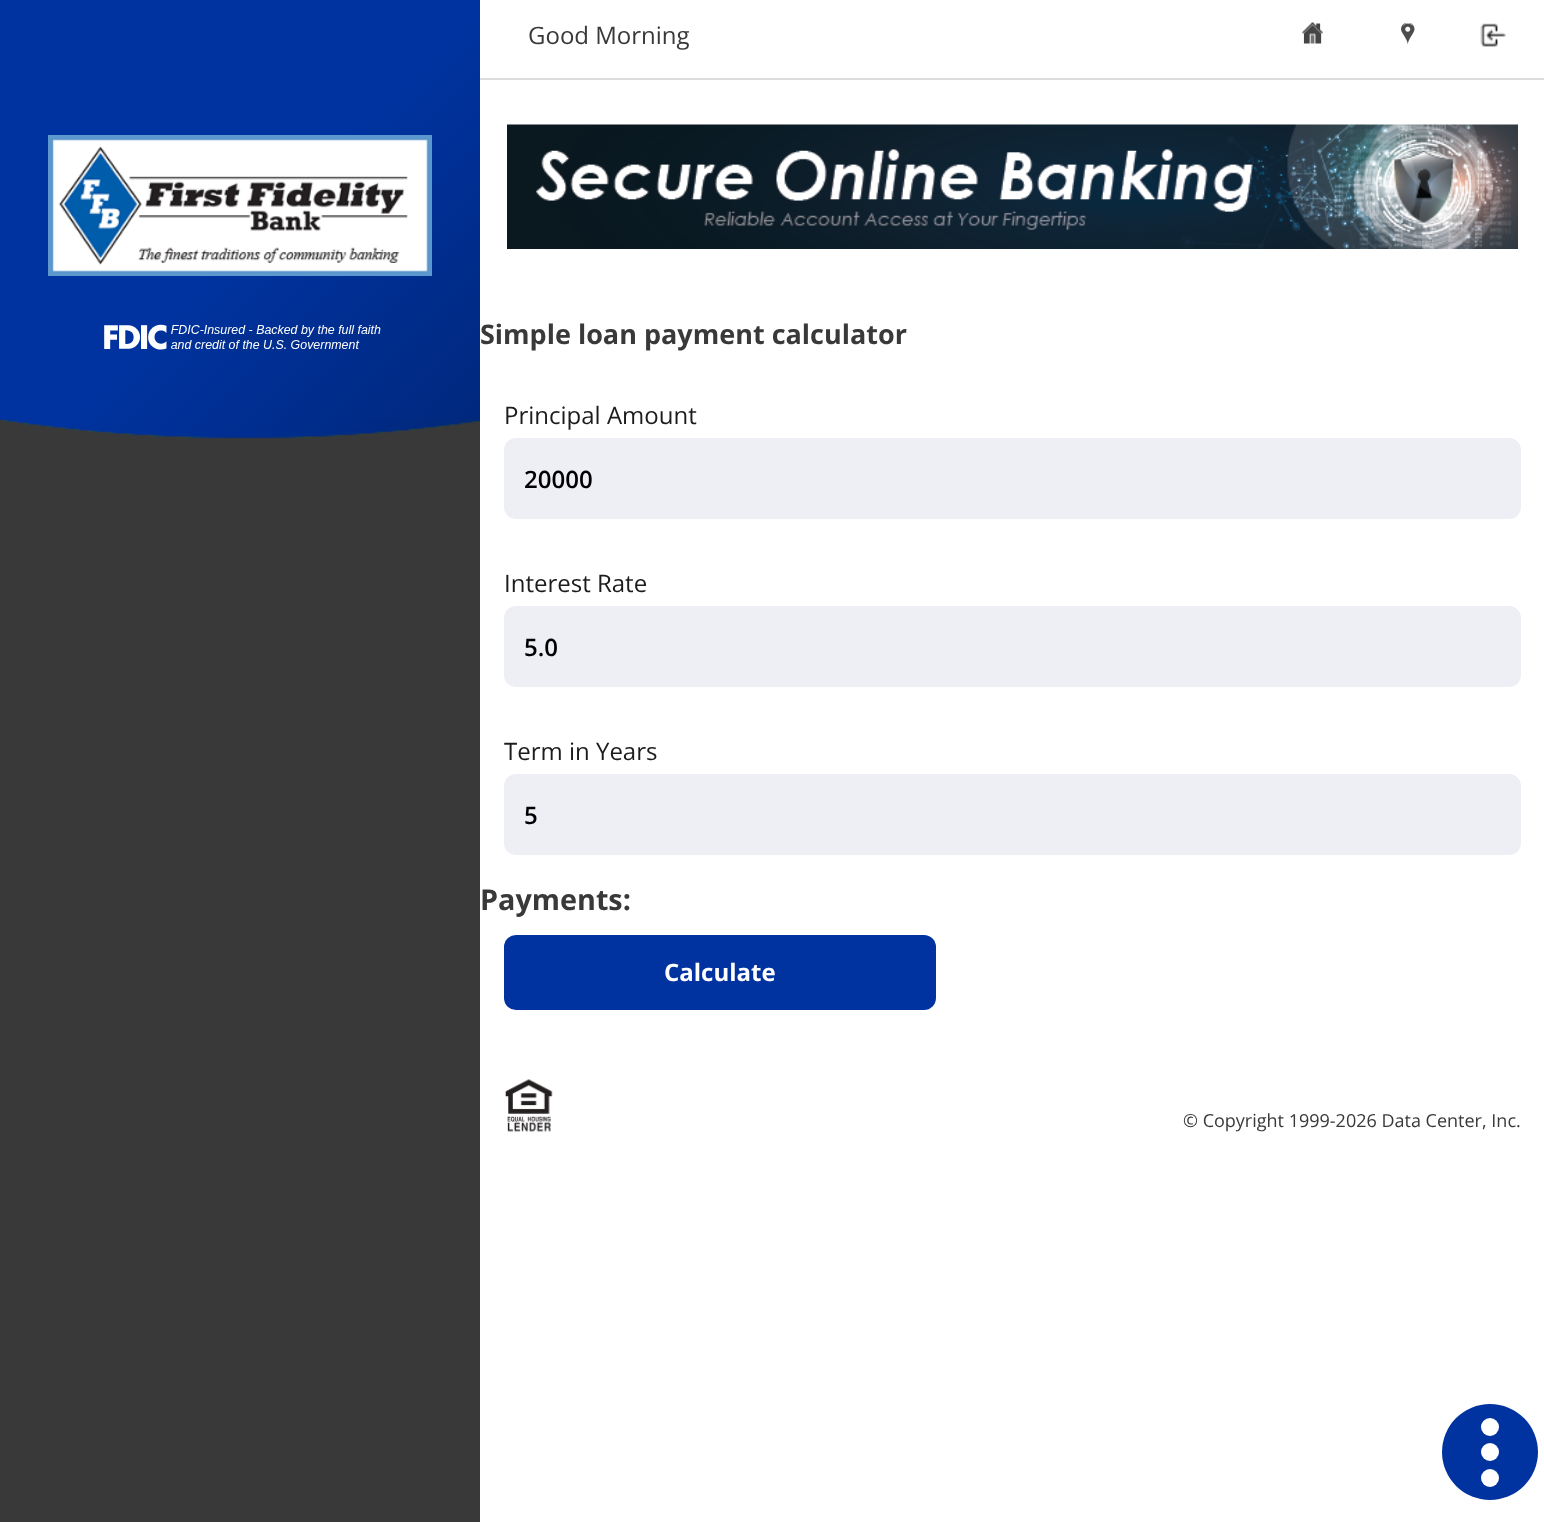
<svg xmlns="http://www.w3.org/2000/svg" width="1544" height="1522" viewBox="0 0 1544 1522">
  <defs>
    <linearGradient id="g1" gradientUnits="userSpaceOnUse" x1="0" y1="0" x2="480" y2="480"><stop offset="0" stop-color="#0033a0"/><stop offset="0.5" stop-color="#0033a0"/><stop offset="1" stop-color="#002678"/></linearGradient>
    <radialGradient id="g2" gradientUnits="userSpaceOnUse" cx="0" cy="0" r="1" gradientTransform="matrix(212 0 0 28 240 338)"><stop offset="0" stop-color="#000" stop-opacity="0.05"/><stop offset="0.7" stop-color="#000" stop-opacity="0"/></radialGradient>
  </defs>
  <rect width="100%" height="100%" fill="#fff"/>
  <path d="M0 480h480v1042H0z" fill="#393939"/>
  <path d="M0 0h480v439H0z" fill="url(#g1)"/>
  <image x="48" y="135" width="384" height="141" href="img/1.png"/>
  <path d="M156 327h168v22H156z" fill="url(#g2)"/>
  <image x="104" y="324" width="277" height="26" href="img/2.png"/>
  <image x="0" y="419" width="480" height="61" href="img/3.png"/>
  <path d="M480 78h1064v2H480z" fill="#dbdbdb"/>
  <image x="1302" y="22" width="21" height="22" href="img/4.png"/>
  <image x="1401" y="23" width="14" height="21" href="img/5.png"/>
  <image x="1480" y="23" width="26" height="24" href="img/6.png"/>
  <image x="507" y="124" width="1011" height="125" href="img/7.png"/>
  <rect x="504" y="438" width="1017" height="81" rx="12" fill="#eeeef5"/>
  <rect x="504" y="606" width="1017" height="81" rx="12" fill="#eeeef5"/>
  <rect x="504" y="774" width="1017" height="81" rx="12" fill="#eeeef5"/>
  <rect x="504" y="935" width="432" height="75" rx="12" fill="#0033a0"/>
  <image x="505" y="1079" width="48" height="53" href="img/8.png"/>
  <circle cx="1490" cy="1452" r="48" fill="#0033a0"/>
  <circle cx="1490" cy="1427" r="9" fill="#fff"/>
  <circle cx="1490" cy="1452" r="9" fill="#fff"/>
  <circle cx="1490" cy="1478" r="9" fill="#fff"/>
  <text x="528" y="44" font-family="Open Sans" font-size="24" fill="#393939">Good Morning</text>
  <text x="480" y="344" font-family="Open Sans" font-size="27" font-weight="bold" fill="#393939">Simple loan payment calculator</text>
  <text x="504" y="424" font-family="Open Sans" font-size="24" fill="#1c1c1c">Principal Amount</text>
  <text x="524" y="488" font-family="Open Sans" font-size="24" font-weight="600" fill="#000">20000</text>
  <text x="504" y="592" font-family="Open Sans" font-size="24" fill="#1c1c1c">Interest Rate</text>
  <text x="524" y="656" font-family="Open Sans" font-size="24" font-weight="600" fill="#000">5.0</text>
  <text x="504" y="760" font-family="Open Sans" font-size="24" fill="#1c1c1c">Term in Years</text>
  <text x="524" y="824" font-family="Open Sans" font-size="24" font-weight="600" fill="#000">5</text>
  <text x="480" y="910" font-family="Open Sans" font-size="28.75" font-weight="bold" fill="#393939">Payments:</text>
  <text x="664" y="981" font-family="Open Sans" font-size="24" font-weight="bold" fill="#fff">Calculate</text>
  <text x="1183" y="1127" font-family="Open Sans" font-size="18" fill="#393939">© Copyright 1999-2026 Data Center, Inc.</text>
</svg>
